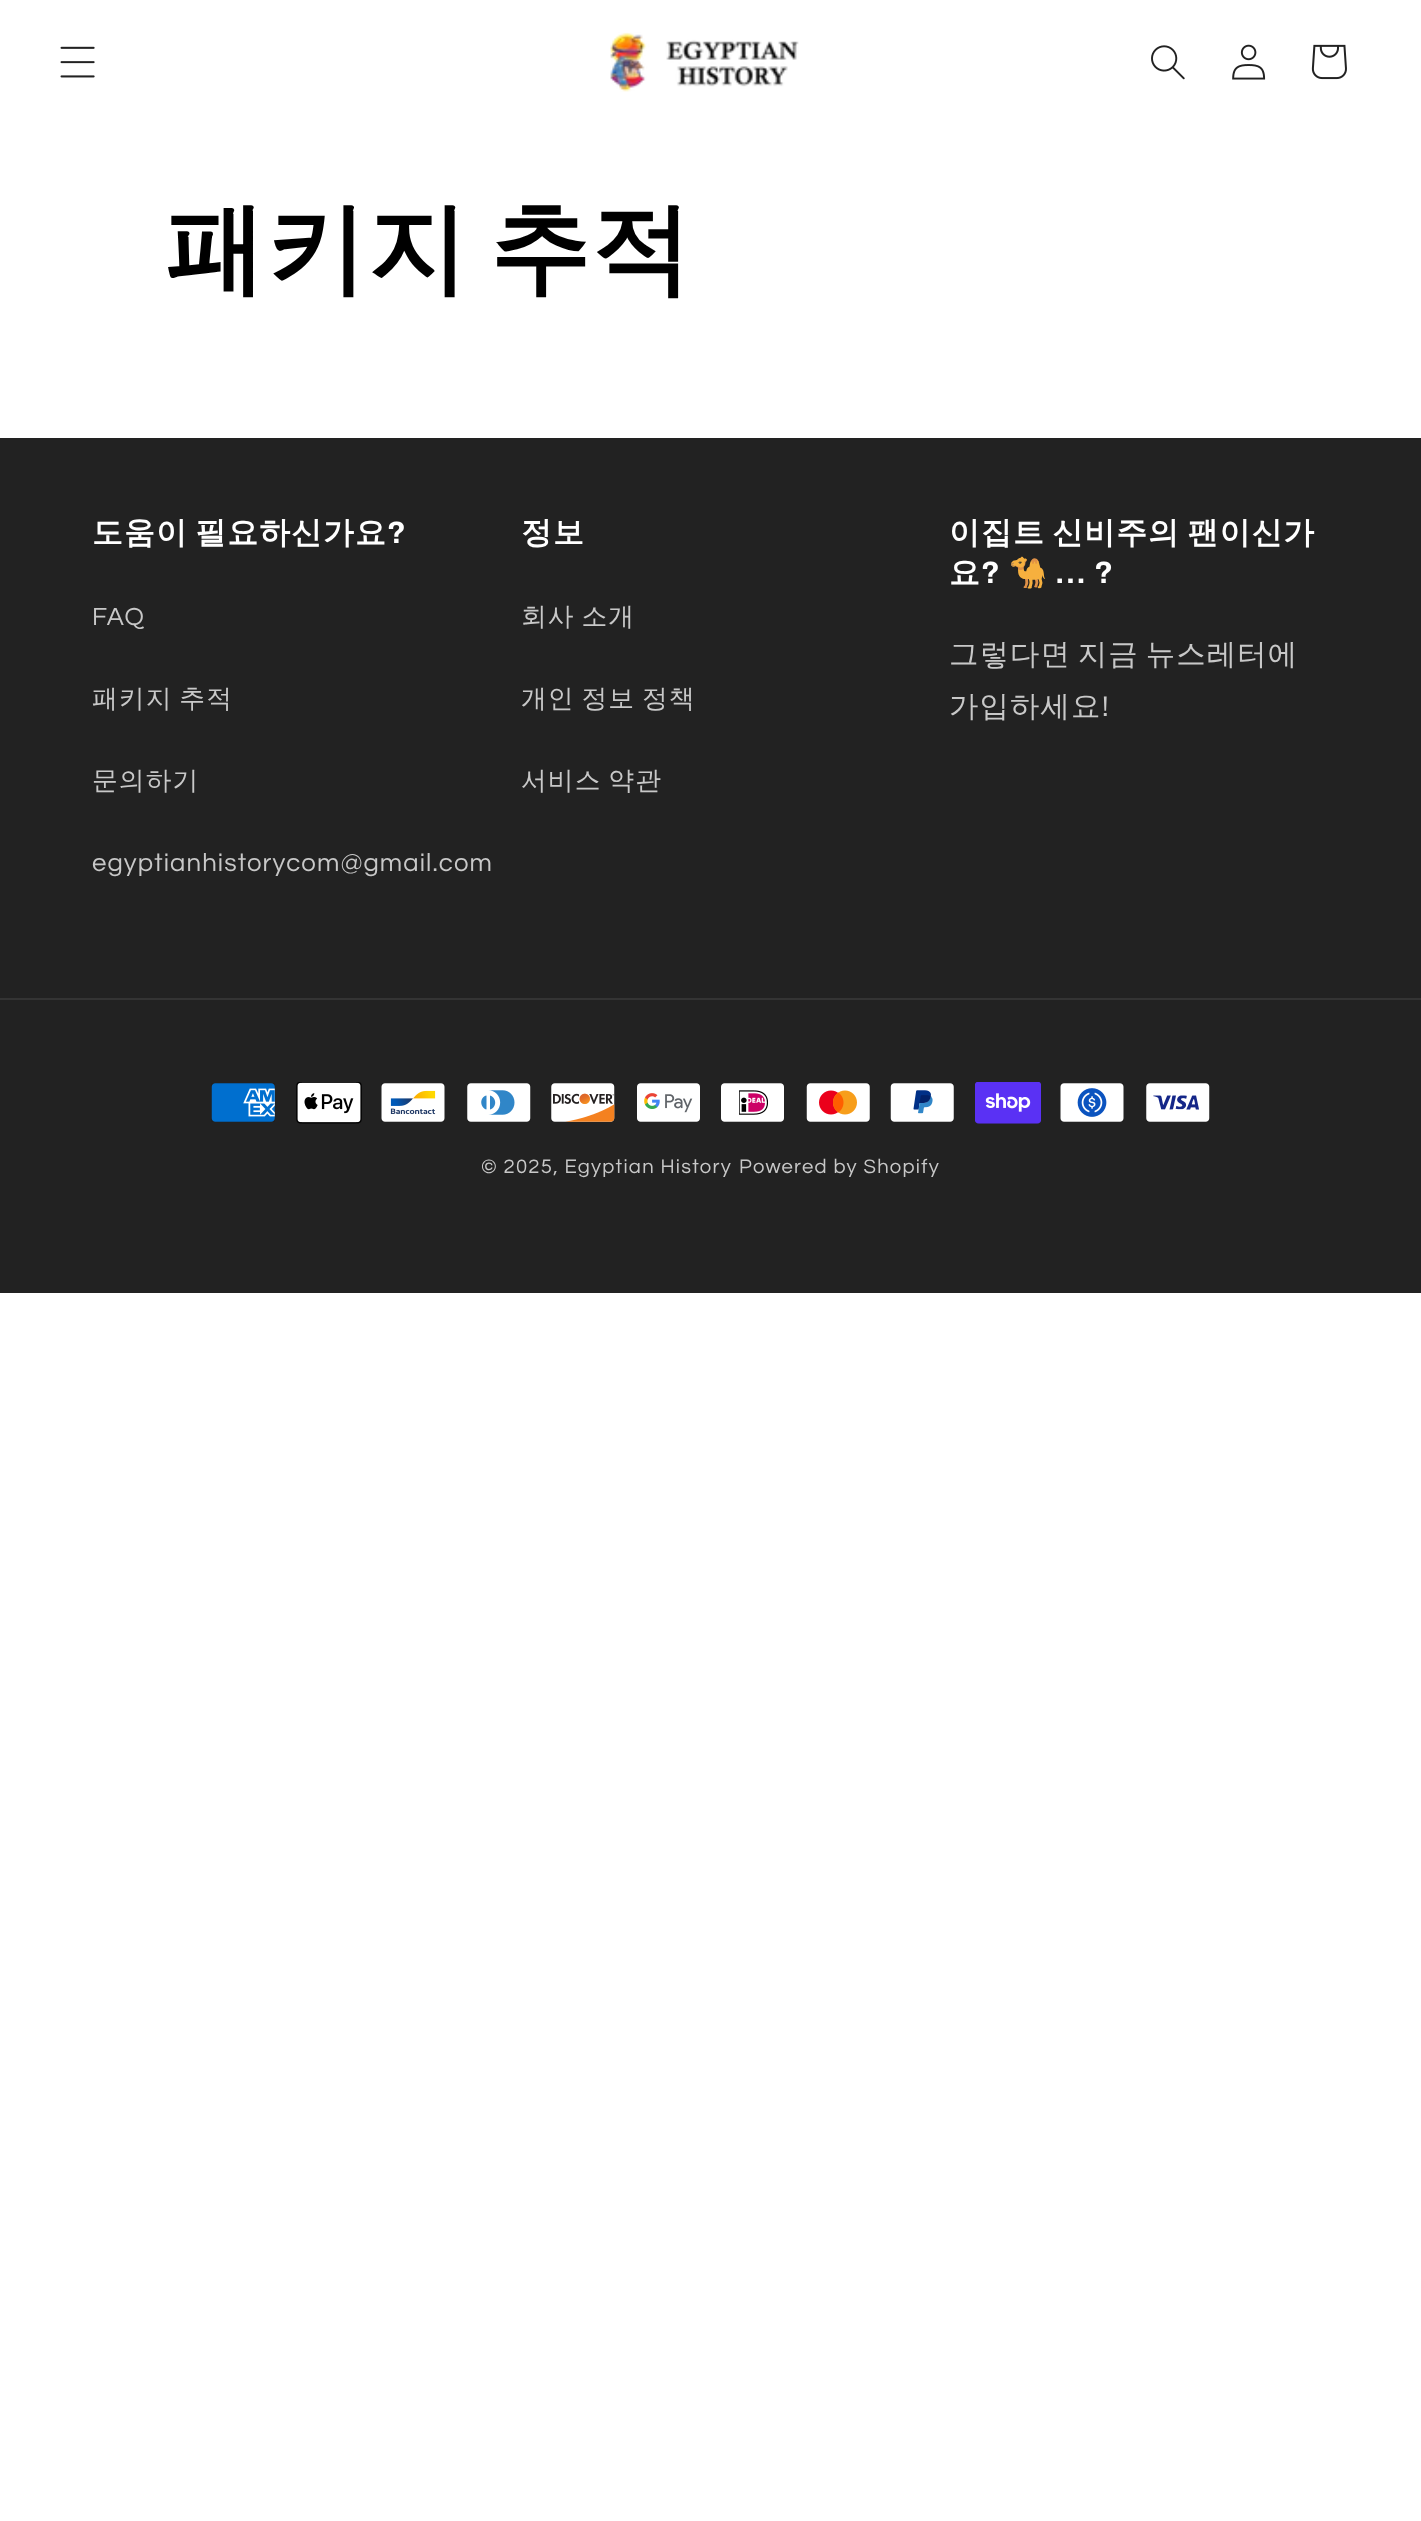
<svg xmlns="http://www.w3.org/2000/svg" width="1421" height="2521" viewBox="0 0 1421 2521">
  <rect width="100%" height="100%" fill="#fff"/>
  <image x="60" y="46" width="35" height="32" href="img/1.png"/>
  <image x="610" y="32" width="189" height="60" href="img/2.png"/>
  <image x="1151" y="45" width="34" height="35" href="img/3.png"/>
  <image x="1232" y="44" width="34" height="36" href="img/4.png"/>
  <image x="1311" y="44" width="36" height="36" href="img/5.png"/>
  <path d="M0 438h1421v855H0z" fill="#222"/>
  <path d="M0 998h1421v2H0z" fill="#343434"/>
  <image x="211" y="1083" width="64" height="39" href="img/6.png"/>
  <image x="296" y="1082" width="66" height="42" href="img/7.png"/>
  <image x="381" y="1083" width="64" height="39" href="img/8.png"/>
  <image x="467" y="1083" width="64" height="39" href="img/9.png"/>
  <image x="551" y="1083" width="64" height="39" href="img/10.png"/>
  <image x="637" y="1083" width="63" height="39" href="img/11.png"/>
  <image x="721" y="1083" width="63" height="39" href="img/12.png"/>
  <image x="806" y="1083" width="64" height="39" href="img/13.png"/>
  <image x="890" y="1083" width="64" height="39" href="img/14.png"/>
  <image x="975" y="1082" width="66" height="42" href="img/15.png"/>
  <image x="1060" y="1083" width="64" height="39" href="img/16.png"/>
  <image x="1146" y="1083" width="64" height="39" href="img/17.png"/>
  <text x="165" y="283" word-spacing="-10" font-family="WenQuanYi Zen Hei" font-size="100" font-weight="bold" letter-spacing="1.2" fill="#000">패키지 추적</text>
  <text x="92" y="543" word-spacing="-3" font-family="WenQuanYi Zen Hei" font-size="30.75" font-weight="bold" letter-spacing="1.2" fill="#fff">도움이 필요하신가요</text>
  <text x="387" y="543" font-family="Archivo" font-size="30.75" font-weight="bold" letter-spacing="1.2" fill="#fff">?</text>
  <text x="92" y="625" font-family="Questrial" font-size="25.75" letter-spacing="1.1" fill="#c8c8c8">FAQ</text>
  <g font-family="WenQuanYi Zen Hei" font-size="25.75" font-weight="500" letter-spacing="1.1" fill="#c8c8c8">
    <text x="92" y="707" word-spacing="-2">패키지 추적</text>
    <text x="92" y="789">문의하기</text>
  </g>
  <text x="92" y="871" font-family="Questrial" font-size="25.75" letter-spacing="1.1" fill="#c8c8c8">egyptianhistorycom@gmail.com</text>
  <text x="521" y="543" font-family="WenQuanYi Zen Hei" font-size="30.75" font-weight="bold" letter-spacing="1.2" fill="#fff">정보</text>
  <g font-family="WenQuanYi Zen Hei" font-size="25.75" font-weight="500" letter-spacing="1.1" fill="#c8c8c8">
    <text x="521" y="625" word-spacing="-2">회사 소개</text>
    <text x="521" y="707" word-spacing="-2">개인 정보 정책</text>
    <text x="521" y="789" word-spacing="-2">서비스 약관</text>
  </g>
  <g font-family="WenQuanYi Zen Hei" font-size="30.75" font-weight="bold" letter-spacing="1.2" fill="#fff">
    <text x="949" y="543" word-spacing="-3">이집트 신비주의 팬이신가</text>
    <text x="949" y="583">요</text>
  </g>
  <text x="981" y="583" font-family="Archivo" font-size="30.75" font-weight="bold" letter-spacing="1.2" fill="#fff">?</text>
  <text x="1009" y="583" font-family="Noto Color Emoji" font-size="30.75" font-weight="bold" letter-spacing="1.2" fill="#fff">🐪</text>
  <text x="1055" y="583" font-family="Archivo" font-size="30.75" font-weight="bold" letter-spacing="1.2" fill="#fff">... ?</text>
  <g font-family="WenQuanYi Zen Hei" font-size="29.4" font-weight="500" letter-spacing="1.1" fill="#c8c8c8">
    <text x="949" y="664" word-spacing="-3">그렇다면 지금 뉴스레터에</text>
    <text x="949" y="716">가입하세요</text>
  </g>
  <text x="1102" y="716" font-family="Questrial" font-size="29.4" letter-spacing="1.1" fill="#c8c8c8">!</text>
  <g font-family="Questrial" font-size="20.25" letter-spacing="1.25" fill="#c8c8c8">
    <text x="481" y="1173">© 2025, Egyptian History</text>
    <text x="739" y="1173">Powered by Shopify</text>
  </g>
</svg>
